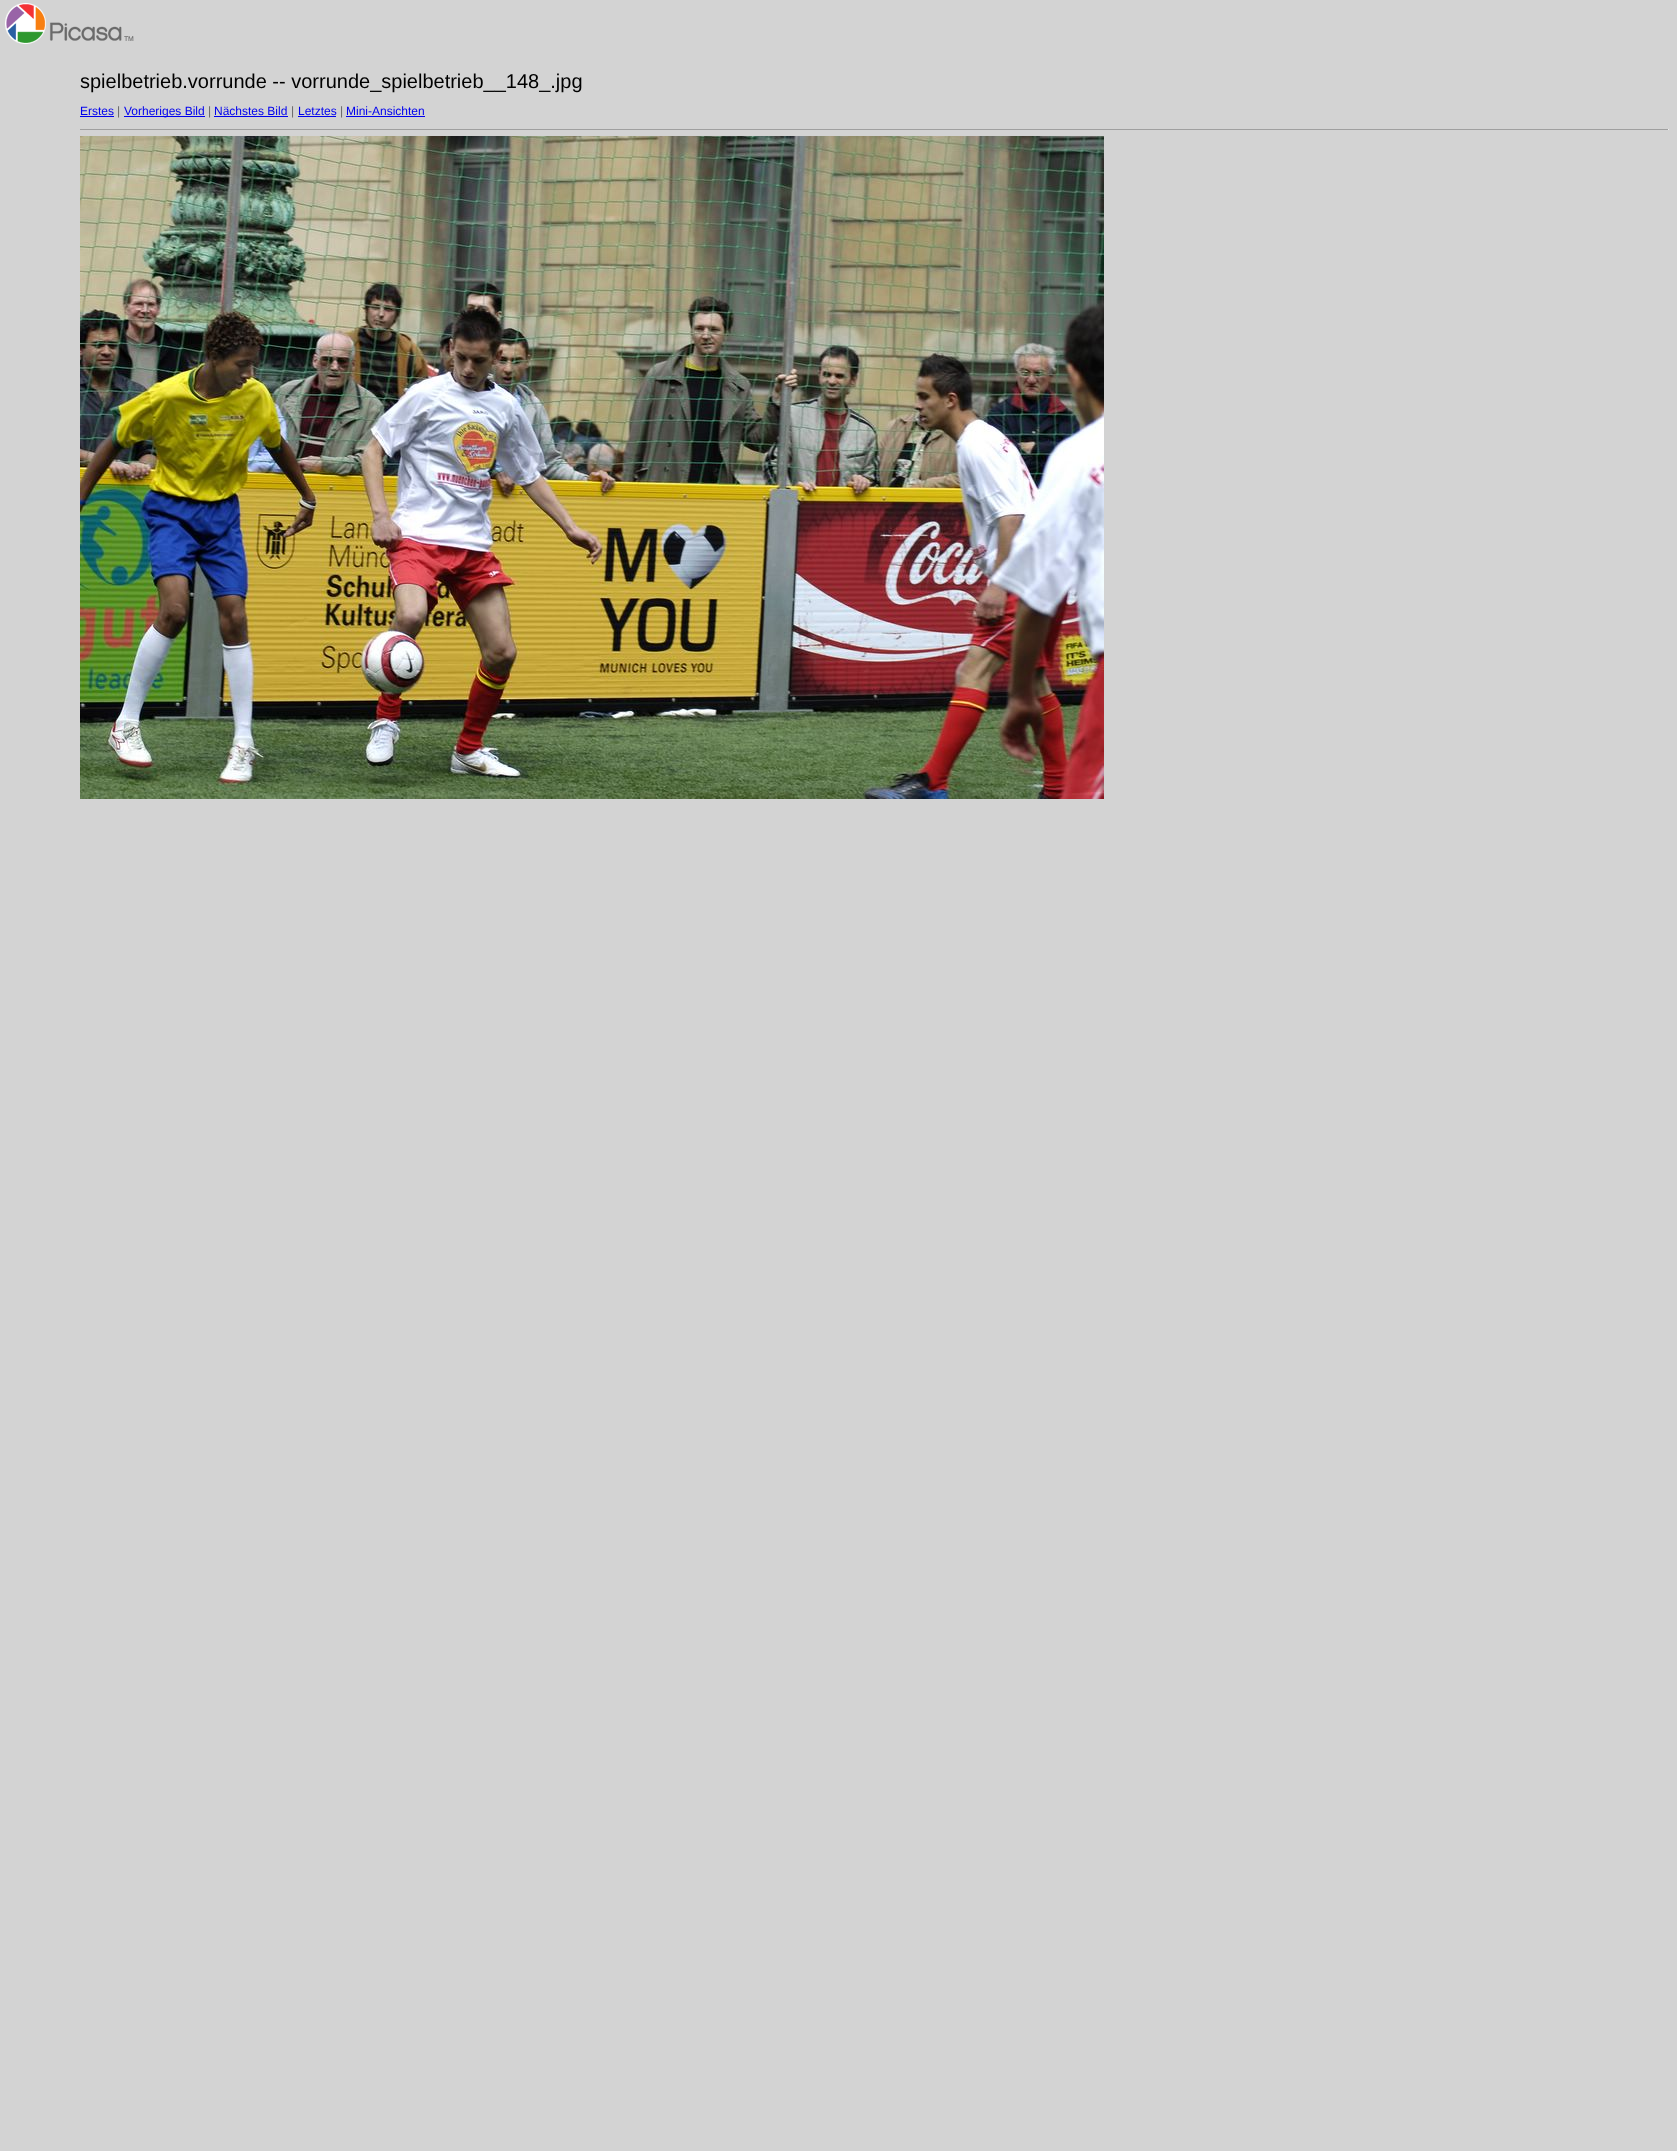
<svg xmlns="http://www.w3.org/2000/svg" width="1677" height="2151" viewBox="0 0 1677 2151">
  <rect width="100%" height="100%" fill="#d3d3d3"/>
  <image x="5" y="3" width="129" height="41" href="img/1.png"/>
  <path d="M80 116h34v1H80z" fill="#00e"/>
  <path d="M124 116h81v1H124z" fill="#00e"/>
  <path d="M214 116h74v1H214z" fill="#00e"/>
  <path d="M298 116h38v1H298z" fill="#00e"/>
  <path d="M346 116h79v1H346z" fill="#00e"/>
  <path d="M80 129h1589v1H80z" fill="#9f9f9f"/>
  <path d="M1668 129h1v1H1668z" fill="#eee"/>
  <image x="80" y="136" width="1024" height="663" href="img/2.png"/>
  <text x="80" y="88" font-family="Liberation Sans" font-size="20" fill="#000">spielbetrieb.vorrunde -- vorrunde_spielbetrieb__148_.jpg</text>
  <text x="80" y="115" font-family="Liberation Sans" font-size="12" fill="#00e">Erstes</text>
  <text x="117" y="115" font-family="Liberation Sans" font-size="12" fill="#666">|</text>
  <text x="124" y="115" font-family="Liberation Sans" font-size="12" fill="#00e">Vorheriges Bild</text>
  <text x="208" y="115" font-family="Liberation Sans" font-size="12" fill="#666">|</text>
  <text x="214" y="115" font-family="Liberation Sans" font-size="12" fill="#00e">Nächstes Bild</text>
  <text x="291" y="115" font-family="Liberation Sans" font-size="12" fill="#666">|</text>
  <text x="298" y="115" font-family="Liberation Sans" font-size="12" fill="#00e">Letztes</text>
  <text x="340" y="115" font-family="Liberation Sans" font-size="12" fill="#666">|</text>
  <text x="346" y="115" font-family="Liberation Sans" font-size="12" fill="#00e">Mini-Ansichten</text>
</svg>
